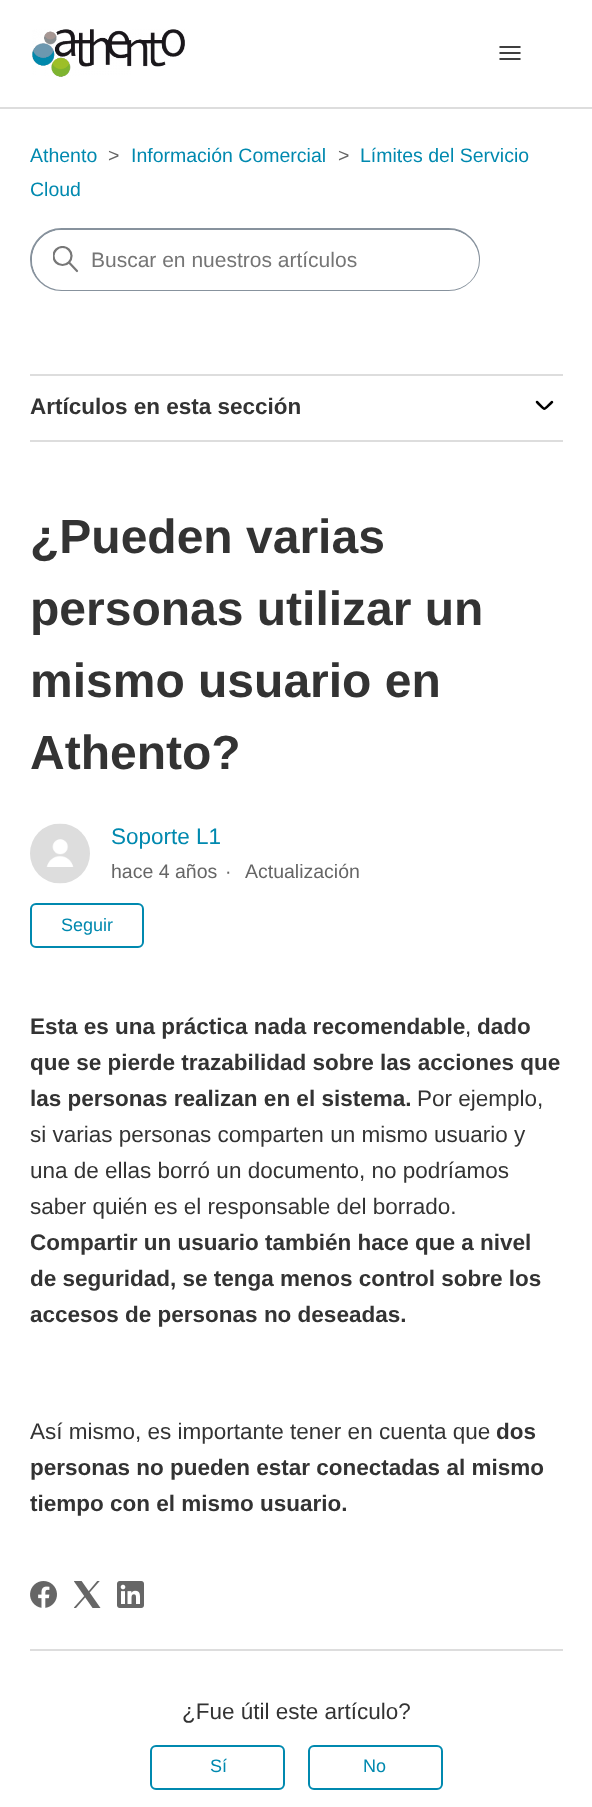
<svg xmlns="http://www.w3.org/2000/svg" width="592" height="1807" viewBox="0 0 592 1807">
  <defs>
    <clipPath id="clip1"><path d="M53 246h27v27H53z"/></clipPath>
  </defs>
  <rect width="100%" height="100%" fill="#fff"/>
  <image x="32" y="29" width="153" height="48" href="img/1.png"/>
  <path d="M500 47H520M500 53H520M500 59H520" fill="none" stroke="#000" stroke-width="1.5" stroke-linecap="round"/>
  <path d="M0 107h592v2H0z" fill="#ddd"/>
  <rect x="31" y="229" width="448" height="61" rx="30.5" fill="none" stroke="#87929d" stroke-width="2"/>
  <rect x="32" y="230" width="447" height="60" rx="30" fill="#fff"/>
  <g clip-path="url(#clip1)">
    <circle cx="62.5" cy="256" r="9" fill="none" stroke="#777" stroke-width="2.2"/>
  </g>
  <path d="M77 271L69.5 263" fill="none" stroke="#777" stroke-width="2.2" stroke-linecap="round"/>
  <path d="M30 374h533v2H30z" fill="#ddd"/>
  <path d="M30 440h533v2H30z" fill="#ddd"/>
  <path d="M537 402C546 411 542.5 411 552 402" fill="none" stroke="#000" stroke-width="2.5" stroke-linecap="round"/>
  <image x="30" y="823" width="60" height="61" href="img/2.png"/>
  <rect x="31" y="904" width="112" height="43" rx="5" fill="none" stroke="#0089af" stroke-width="2"/>
  <image x="30" y="1581" width="27" height="27" href="img/3.png"/>
  <image x="74" y="1581" width="27" height="27" href="img/4.png"/>
  <image x="117" y="1581" width="27" height="27" href="img/5.png"/>
  <path d="M30 1649h533v2H30z" fill="#ddd"/>
  <rect x="151" y="1746" width="133" height="43" rx="5" fill="none" stroke="#0089af" stroke-width="2"/>
  <rect x="309" y="1746" width="133" height="43" rx="5" fill="none" stroke="#0089af" stroke-width="2"/>
  <text x="30" y="162" font-family="Liberation Sans" font-size="19.5" fill="#0089af">Athento</text>
  <text x="108" y="162" font-family="Liberation Sans" font-size="19.5" fill="#666">&gt;</text>
  <text x="131" y="162" font-family="Liberation Sans" font-size="19.5" fill="#0089af">Información Comercial</text>
  <text x="338" y="162" font-family="Liberation Sans" font-size="19.5" fill="#666">&gt;</text>
  <g font-family="Liberation Sans" font-size="19.5" fill="#0089af">
    <text x="360" y="162">Límites del Servicio</text>
    <text x="30" y="196">Cloud</text>
  </g>
  <text x="91" y="267" font-family="Liberation Sans" font-size="21" fill="#757575">Buscar en nuestros artículos</text>
  <text x="30" y="414" font-family="Liberation Sans" font-size="22.5" font-weight="bold" fill="#333">Artículos en esta sección</text>
  <g font-family="Liberation Sans" font-size="48" font-weight="bold" fill="#333">
    <text x="30" y="553">¿Pueden varias</text>
    <text x="30" y="625">personas utilizar un</text>
    <text x="30" y="697">mismo usuario en</text>
    <text x="30" y="769">Athento?</text>
  </g>
  <text x="111" y="844" font-family="Liberation Sans" font-size="22.5" fill="#0089af">Soporte L1</text>
  <g font-family="Liberation Sans" font-size="19.5" fill="#666">
    <text x="111" y="878">hace 4 años</text>
    <text x="225" y="878">·</text>
    <text x="245" y="878">Actualización</text>
  </g>
  <text x="61" y="931" font-family="Liberation Sans" font-size="18" fill="#0089af">Seguir</text>
  <text x="30" y="1034" font-family="Liberation Sans" font-size="22.5" font-weight="bold" fill="#333">Esta es una práctica nada recomendable</text>
  <text x="465" y="1034" font-family="Liberation Sans" font-size="22.5" fill="#333">,</text>
  <g font-family="Liberation Sans" font-size="22.5" font-weight="bold" fill="#333">
    <text x="477" y="1034">dado</text>
    <text x="30" y="1070">que se pierde trazabilidad sobre las acciones que</text>
    <text x="30" y="1106">las personas realizan en el sistema.</text>
  </g>
  <g font-family="Liberation Sans" font-size="22.5" fill="#333">
    <text x="417" y="1106">Por ejemplo,</text>
    <text x="30" y="1142">si varias personas comparten un mismo usuario y</text>
    <text x="30" y="1178">una de ellas borró un documento, no podríamos</text>
    <text x="30" y="1214">saber quién es el responsable del borrado.</text>
  </g>
  <g font-family="Liberation Sans" font-size="22.5" font-weight="bold" fill="#333">
    <text x="30" y="1250">Compartir un usuario también hace que a nivel</text>
    <text x="30" y="1286">de seguridad, se tenga menos control sobre los</text>
    <text x="30" y="1322">accesos de personas no deseadas.</text>
  </g>
  <text x="30" y="1439" font-family="Liberation Sans" font-size="22.5" fill="#333">Así mismo, es importante tener en cuenta que</text>
  <g font-family="Liberation Sans" font-size="22.5" font-weight="bold" fill="#333">
    <text x="496" y="1439">dos</text>
    <text x="30" y="1475">personas no pueden estar conectadas al mismo</text>
    <text x="30" y="1511">tiempo con el mismo usuario.</text>
  </g>
  <text x="182" y="1719" font-family="Liberation Sans" font-size="22.5" fill="#333">¿Fue útil este artículo?</text>
  <g font-family="Liberation Sans" font-size="18" fill="#0089af">
    <text x="210" y="1772">Sí</text>
    <text x="363" y="1772">No</text>
  </g>
</svg>
